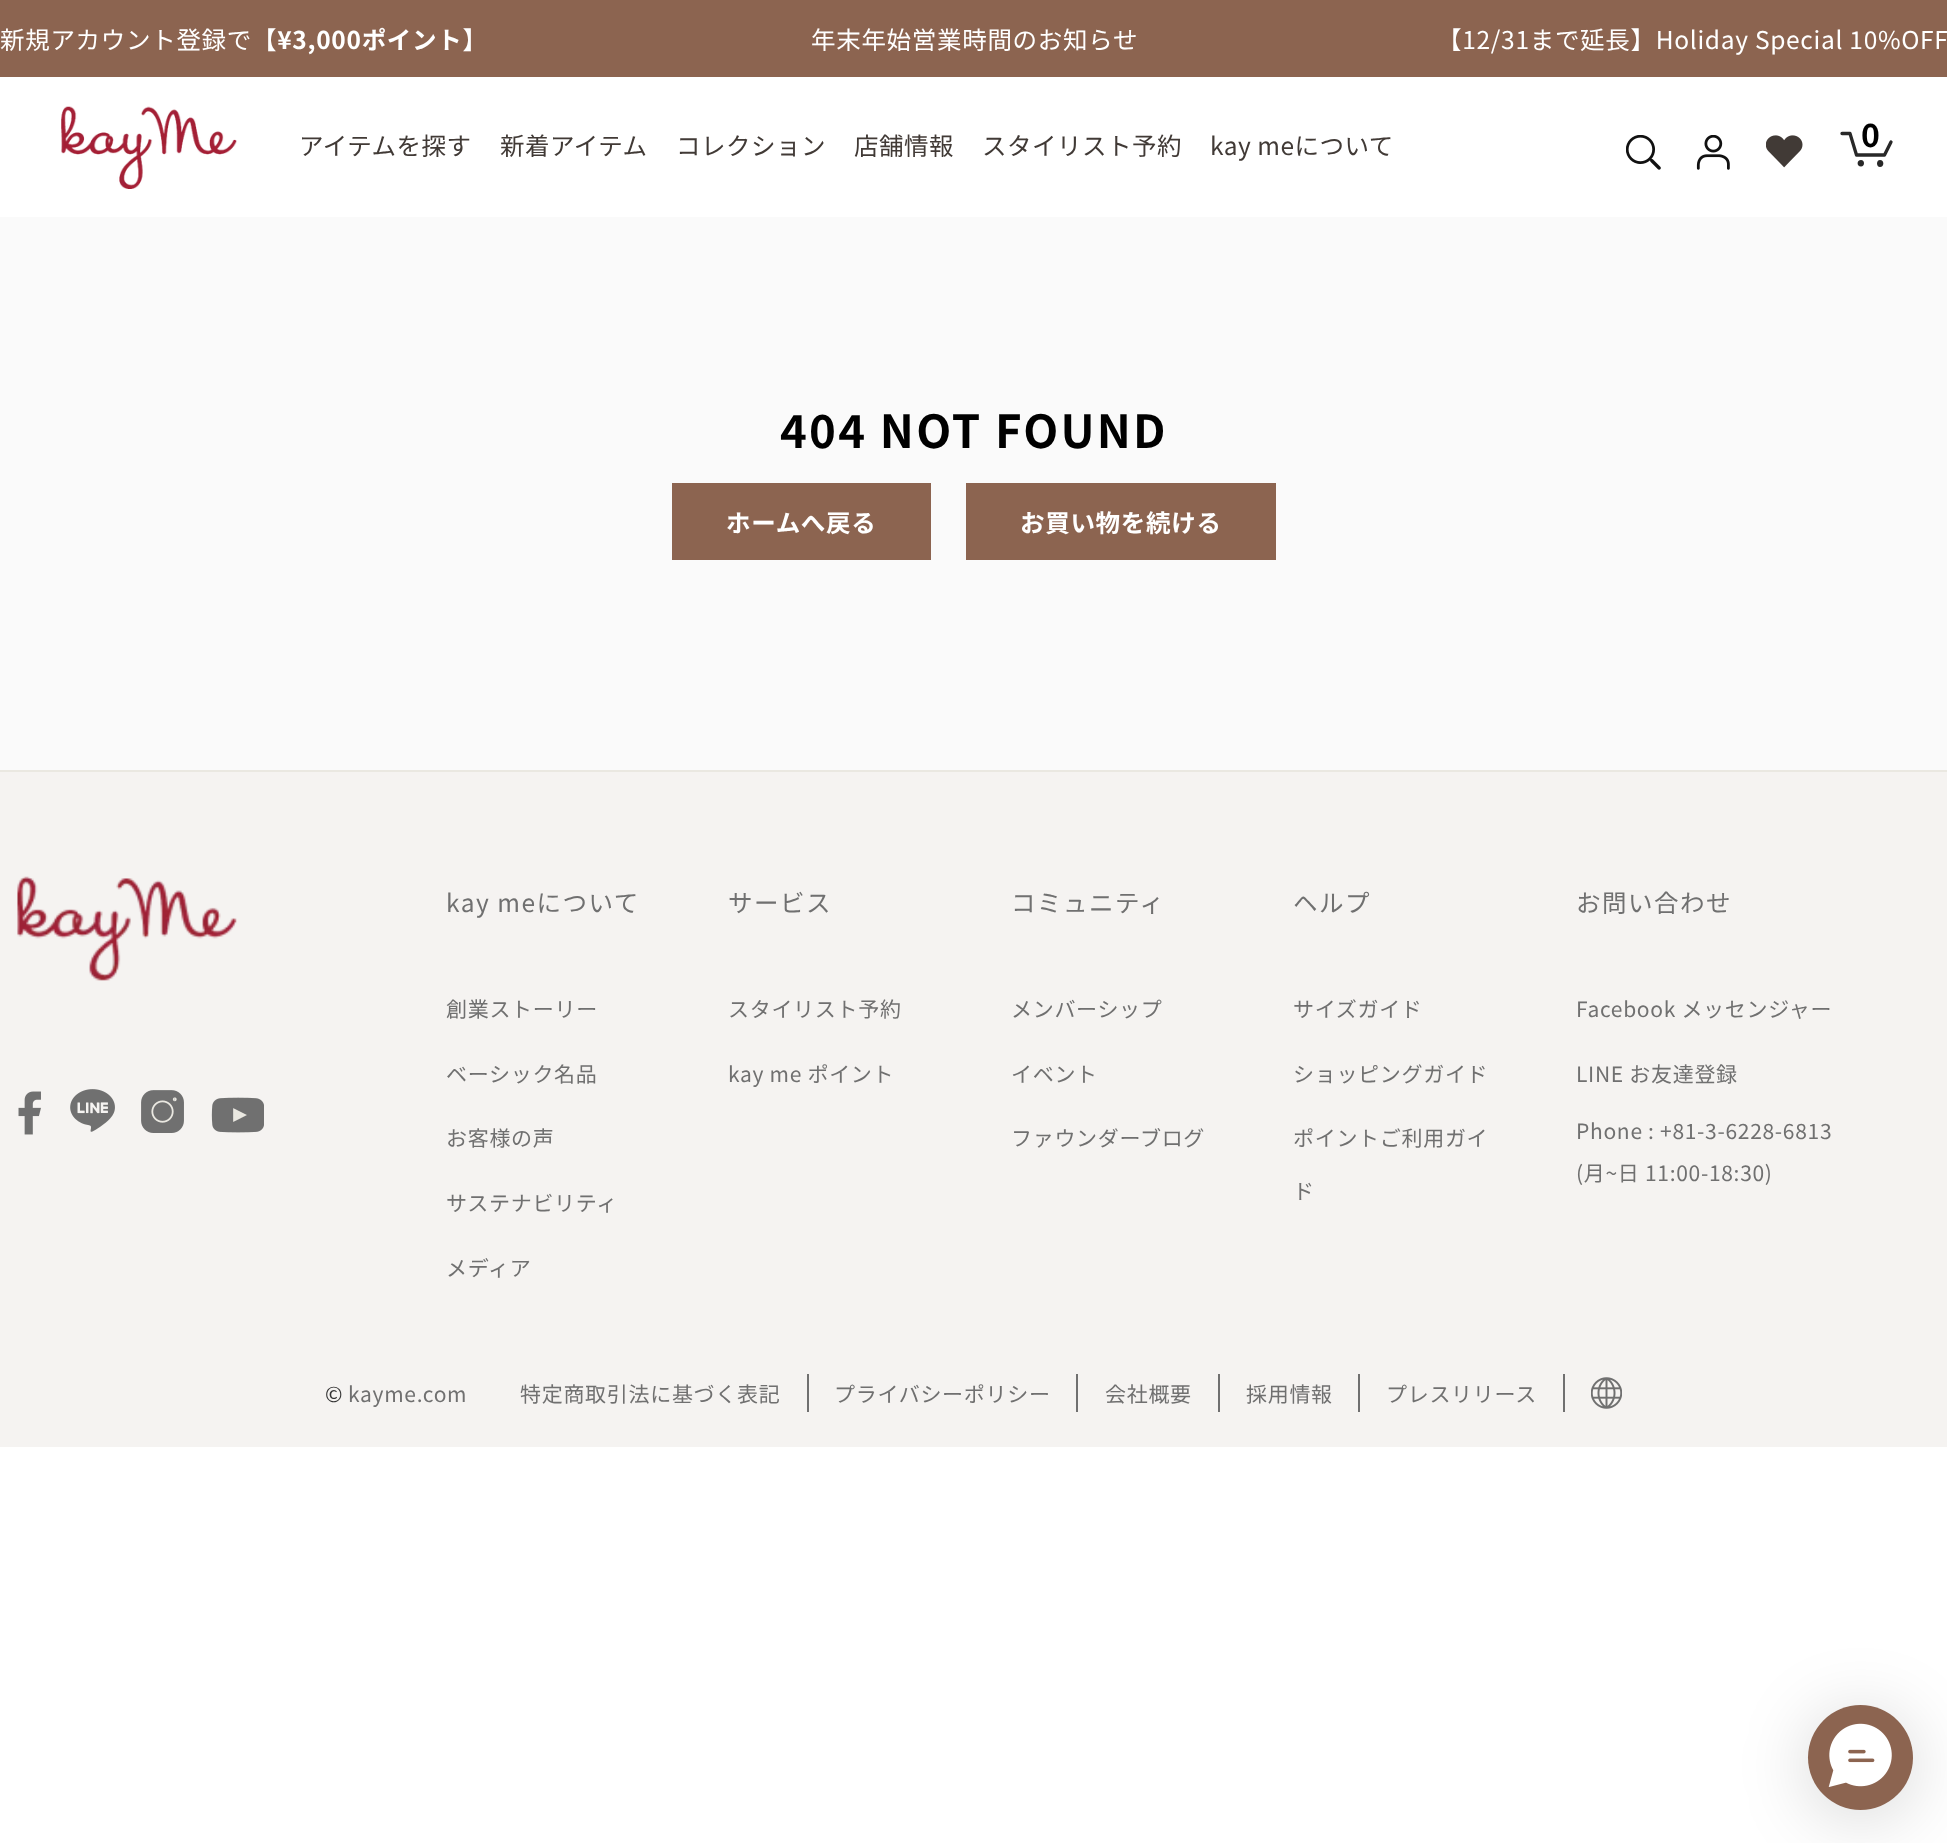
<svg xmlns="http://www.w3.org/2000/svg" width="1947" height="1843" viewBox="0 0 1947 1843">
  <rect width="100%" height="100%" fill="#fff"/>
  <path d="M0 0h1947v77H0z" fill="#8c6450"/>
  <image x="61" y="106" width="176" height="83" href="img/1.png"/>
  <image x="1626" y="135" width="35" height="35" href="img/2.png"/>
  <image x="1696" y="135" width="34" height="35" href="img/3.png"/>
  <image x="1766" y="135" width="37" height="33" href="img/4.png"/>
  <path d="M1842 133.5H1850L1856.5 155H1884.5L1891 142" fill="none" stroke="#282828" stroke-width="3.3" stroke-linecap="round" stroke-linejoin="round"/>
  <path d="M1861 166.5C1865 166.5 1865 160 1861 160C1856.5 160 1856.5 166.5 1861 166.5ZM1880 167C1884.5 167 1884.5 160 1880 160C1876 160 1876 167 1880 167Z" fill="#282828"/>
  <path d="M0 217h1947v553H0z" fill="#fafafa"/>
  <path d="M672 483h259v77H672z" fill="#8c6450"/>
  <path d="M966 483h310v77H966z" fill="#8c6450"/>
  <path d="M0 772h1947v675H0z" fill="#f5f3f1"/>
  <path d="M0 770h1947v2H0z" fill="#eae8e1"/>
  <image x="17" y="876" width="220" height="105" href="img/5.png"/>
  <image x="18" y="1091" width="23" height="44" href="img/6.png"/>
  <image x="70" y="1089" width="45" height="43" href="img/7.png"/>
  <image x="141" y="1090" width="43" height="43" href="img/8.png"/>
  <image x="211" y="1097" width="53" height="36" href="img/9.png"/>
  <path d="M807 1374h2v38H807z" fill="#707070"/>
  <path d="M1076 1374h2v38H1076z" fill="#707070"/>
  <path d="M1218 1374h2v38H1218z" fill="#707070"/>
  <path d="M1358 1374h2v38H1358z" fill="#707070"/>
  <path d="M1563 1374h2v38H1563z" fill="#707070"/>
  <image x="1591" y="1377" width="31" height="32" href="img/10.png"/>
  <rect x="1808" y="1713" width="105" height="105" rx="52.5" fill="#00000029" filter="blur(35px)"/>
  <circle cx="1860.5" cy="1757.5" r="52.5" fill="#8c6450"/>
  <image x="1828" y="1723" width="64" height="64" href="img/11.png"/>
  <text x="0" y="49" font-family="Noto Sans JP" font-size="24.5" letter-spacing="0.7" fill="#fff">新規アカウント登録で</text>
  <text x="252" y="49" font-family="Noto Sans JP" font-size="24.5" font-weight="bold" letter-spacing="0.7" fill="#fff">【¥3,000ポイント】</text>
  <g font-family="Noto Sans JP" font-size="24.5" letter-spacing="0.7" fill="#fff">
    <text x="811" y="49">年末年始営業時間のお知らせ</text>
    <text x="1437" y="49">【12/31まで延長】Holiday Special 10%OFF</text>
  </g>
  <g font-family="Noto Sans JP" font-size="24.5" letter-spacing="0.5" fill="#413a36">
    <text x="299" y="155">アイテムを探す</text>
    <text x="500" y="155">新着アイテム</text>
    <text x="676" y="155">コレクション</text>
    <text x="854" y="155">店舗情報</text>
    <text x="982" y="155">スタイリスト予約</text>
    <text x="1210" y="155">kay meについて</text>
  </g>
  <text x="1861" y="147" font-family="Noto Sans JP" font-size="32" font-weight="bold" letter-spacing="0.7" fill="#000">0</text>
  <text x="780" y="448" font-family="Noto Sans JP" font-size="45.5" font-weight="bold" letter-spacing="2.25" fill="#000">404 NOT FOUND</text>
  <g font-family="Noto Sans JP" font-size="24.5" font-weight="bold" letter-spacing="0.7" fill="#fff">
    <text x="726" y="532">ホームへ戻る</text>
    <text x="1020" y="532">お買い物を続ける</text>
  </g>
  <text x="446" y="912" font-family="Noto Sans JP" font-size="24.5" letter-spacing="1.5" fill="#707070">kay meについて</text>
  <g font-family="Noto Sans JP" font-size="21" letter-spacing="0.7" fill="#707070">
    <text x="446" y="1017">創業ストーリー</text>
    <text x="446" y="1082">ベーシック名品</text>
    <text x="446" y="1146">お客様の声</text>
    <text x="446" y="1211">サステナビリティ</text>
    <text x="446" y="1276">メディア</text>
  </g>
  <text x="728" y="912" font-family="Noto Sans JP" font-size="24.5" letter-spacing="1.5" fill="#707070">サービス</text>
  <g font-family="Noto Sans JP" font-size="21" letter-spacing="0.7" fill="#707070">
    <text x="728" y="1017">スタイリスト予約</text>
    <text x="728" y="1082">kay me ポイント</text>
  </g>
  <text x="1011" y="912" font-family="Noto Sans JP" font-size="24.5" letter-spacing="1.5" fill="#707070">コミュニティ</text>
  <g font-family="Noto Sans JP" font-size="21" letter-spacing="0.7" fill="#707070">
    <text x="1011" y="1017">メンバーシップ</text>
    <text x="1011" y="1082">イベント</text>
    <text x="1011" y="1146">ファウンダーブログ</text>
  </g>
  <text x="1293" y="912" font-family="Noto Sans JP" font-size="24.5" letter-spacing="1.5" fill="#707070">ヘルプ</text>
  <g font-family="Noto Sans JP" font-size="21" letter-spacing="0.7" fill="#707070">
    <text x="1293" y="1017">サイズガイド</text>
    <text x="1293" y="1082">ショッピングガイド</text>
    <text x="1293" y="1146">ポイントご利用ガイ</text>
    <text x="1293" y="1199">ド</text>
  </g>
  <text x="1576" y="912" font-family="Noto Sans JP" font-size="24.5" letter-spacing="1.5" fill="#707070">お問い合わせ</text>
  <g font-family="Noto Sans JP" font-size="21" letter-spacing="0.7" fill="#707070">
    <text x="1576" y="1017">Facebook メッセンジャー</text>
    <text x="1576" y="1082">LINE お友達登録</text>
    <text x="1576" y="1139">Phone : +81-3-6228-6813</text>
    <text x="1576" y="1181">(月~日 11:00-18:30)</text>
  </g>
  <text x="325" y="1402" font-family="Noto Sans JP" font-size="21" letter-spacing="0.7" fill="#333">©</text>
  <g font-family="Noto Sans JP" font-size="21" letter-spacing="0.7" fill="#707070">
    <text x="348" y="1402">kayme.com</text>
    <text x="520" y="1402">特定商取引法に基づく表記</text>
    <text x="834" y="1402">プライバシーポリシー</text>
    <text x="1105" y="1402">会社概要</text>
    <text x="1246" y="1402">採用情報</text>
    <text x="1386" y="1402">プレスリリース</text>
  </g>
</svg>
